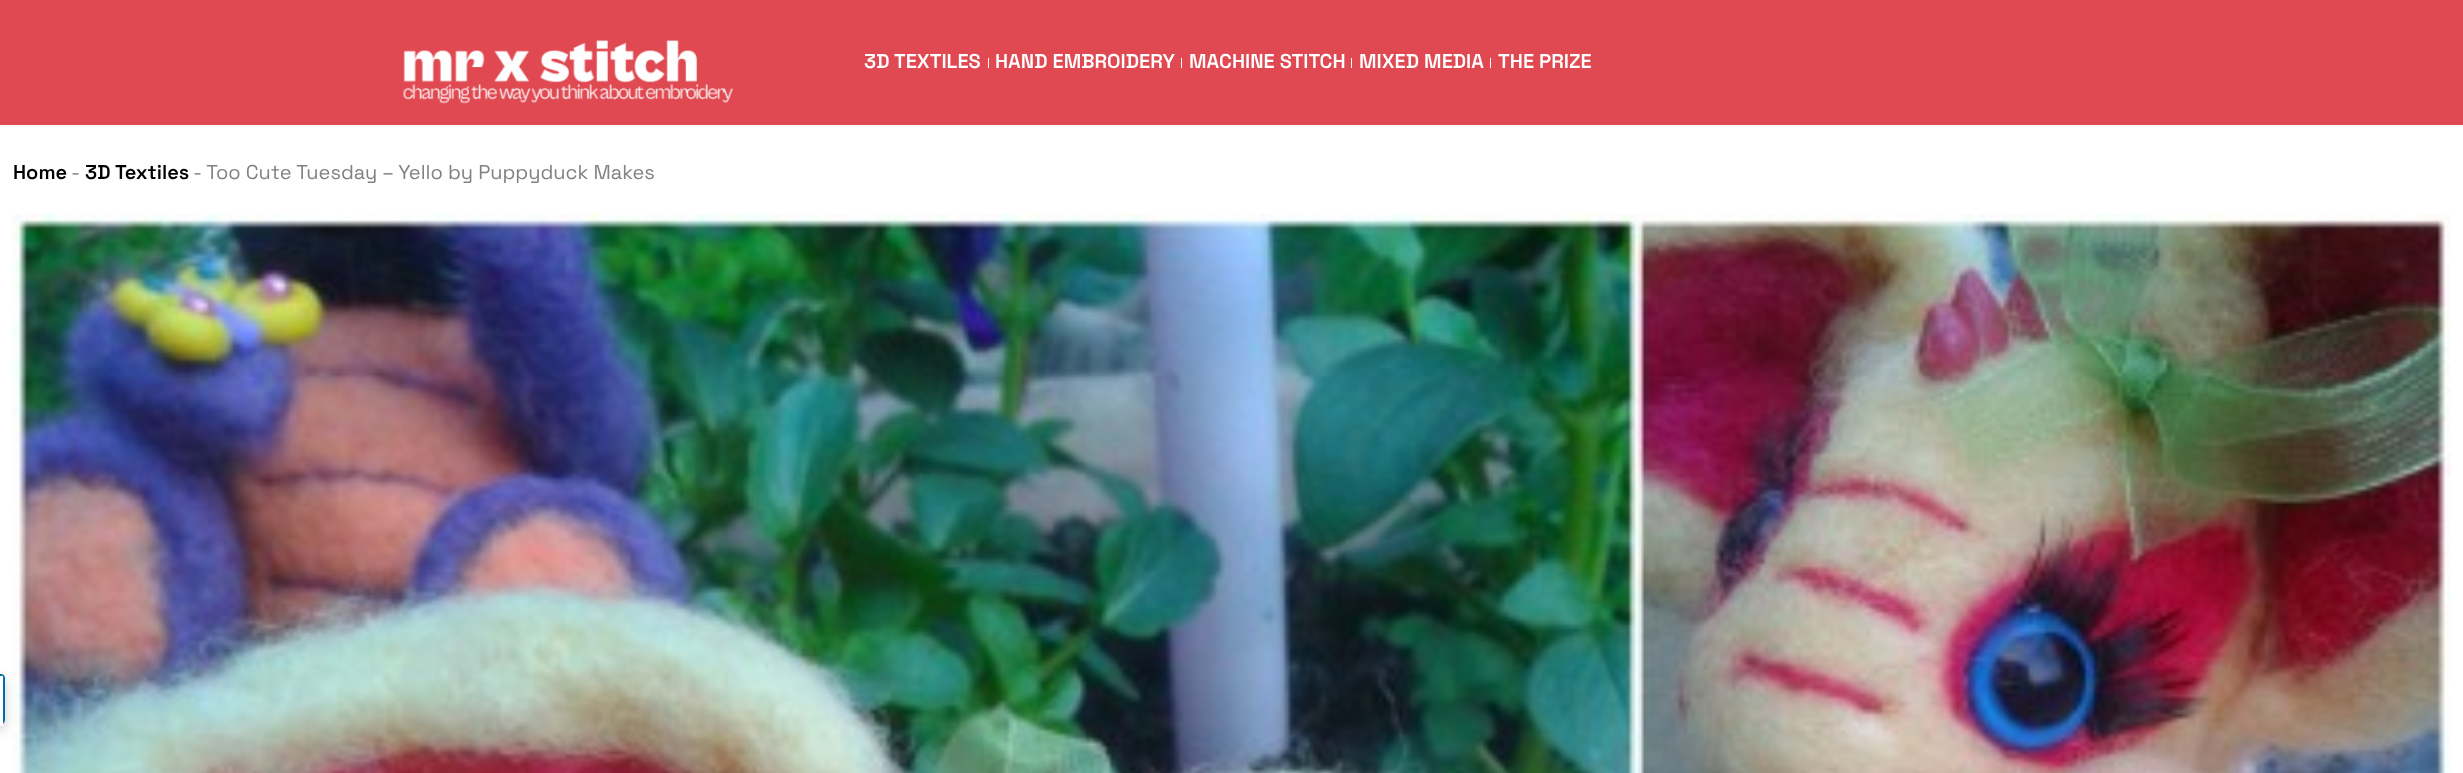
<svg xmlns="http://www.w3.org/2000/svg" width="2463" height="773" viewBox="0 0 2463 773">
  <rect width="100%" height="100%" fill="#fff"/>
  <path d="M0 0h2463v125H0z" fill="#e04951"/>
  <image x="402" y="39" width="332" height="65" href="img/1.png"/>
  <path d="M988 58h1v10H988z" fill="#fff"/>
  <path d="M1181 58h1v10H1181z" fill="#fff"/>
  <path d="M1351 58h1v10H1351z" fill="#fff"/>
  <path d="M1490 58h1v10H1490z" fill="#fff"/>
  <image x="12" y="213" width="2439" height="560" href="img/2.png"/>
  <rect x="-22" y="679" width="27" height="50" rx="4" fill="#00000033" filter="blur(6px)"/>
  <path d="M-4 674H1C3 674 5 676 5 678V720C5 722 3 724 1 724H-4Z" fill="#0073b7"/>
  <path d="M-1.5 675.5h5v47H-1.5z" fill="none" stroke="#0000000d" stroke-width="3"/>
  <path d="M0 676h3v50H0z" fill="#fff"/>
  <g font-family="Space Grotesk" font-size="20" font-weight="600" fill="#fff">
    <text x="864" y="68">3D TEXTILES</text>
    <text x="995" y="68">HAND EMBROIDERY</text>
    <text x="1189" y="68">MACHINE STITCH</text>
    <text x="1359" y="68">MIXED MEDIA</text>
    <text x="1498" y="68">THE PRIZE</text>
  </g>
  <text x="13" y="179" font-family="Space Grotesk" font-size="20" font-weight="600" fill="#000">Home</text>
  <text x="71" y="179" font-family="Space Grotesk" font-size="20" font-weight="300" fill="#818181">-</text>
  <text x="85" y="179" font-family="Space Grotesk" font-size="20" font-weight="600" fill="#000">3D Textiles</text>
  <text x="193" y="179" font-family="Space Grotesk" font-size="20" font-weight="300" fill="#818181">- Too Cute Tuesday – Yello by Puppyduck Makes</text>
</svg>
